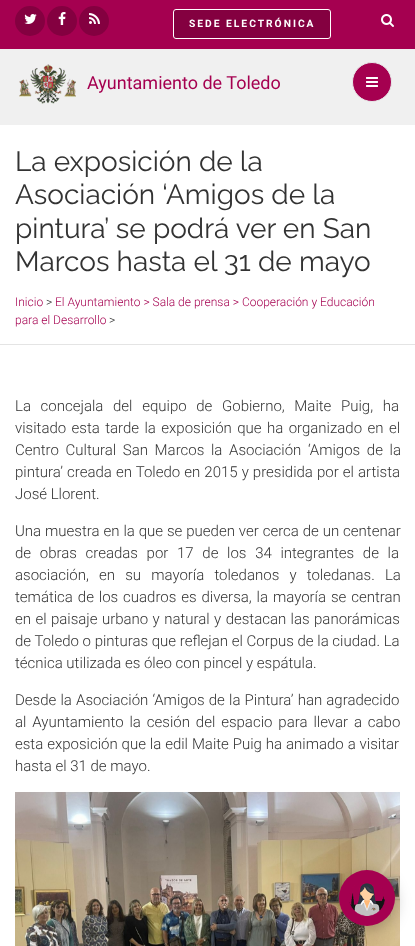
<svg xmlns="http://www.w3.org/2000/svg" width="415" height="946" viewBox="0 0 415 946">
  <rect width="100%" height="100%" fill="#fff"/>
  <path d="M0 0h415v49H0z" fill="#a50050"/>
  <circle cx="30" cy="21" r="15" fill="#840040"/>
  <image x="24" y="14" width="13" height="10" href="img/1.png"/>
  <circle cx="62" cy="21" r="15" fill="#840040"/>
  <image x="58" y="12" width="8" height="13" href="img/2.png"/>
  <circle cx="94" cy="21" r="15" fill="#840040"/>
  <image x="89" y="13" width="11" height="11" href="img/3.png"/>
  <rect x="173.5" y="9.5" width="157" height="29" rx="2.5" fill="#840040" stroke="#fff"/>
  <image x="381" y="14" width="13" height="13" href="img/4.png"/>
  <path d="M0 49h415v76H0z" fill="#f0f0f0"/>
  <image x="19" y="64" width="57" height="40" href="img/5.png"/>
  <circle cx="372" cy="82" r="19.5" fill="#a50050" stroke="#e9e9e9"/>
  <image x="366" y="77" width="12" height="10" href="img/6.png"/>
  <path d="M0 344h415v1H0z" fill="#e4e4e4"/>
  <image x="15" y="792" width="385" height="154" href="img/7.png"/>
  <rect x="340" y="874" width="56" height="56" rx="28" fill="#0000003d" filter="blur(7.5px)"/>
  <circle cx="367" cy="898" r="28" fill="#a50050"/>
  <image x="349" y="883" width="36" height="33" href="img/8.png"/>
  <text x="189" y="27" font-family="Roboto" font-size="10.25" font-weight="bold" letter-spacing="2" fill="#fff">SEDE ELECTRÓNICA</text>
  <text x="87" y="89" font-family="Roboto" font-size="18" fill="#a50050">Ayuntamiento de Toledo</text>
  <g font-family="Raleway" font-size="28" fill="#333">
    <text x="15" y="171">La exposición de la</text>
    <text x="15" y="204">Asociación ‘Amigos de la</text>
    <text x="15" y="238">pintura’ se podrá ver en San</text>
    <text x="15" y="271">Marcos hasta el 31 de mayo</text>
  </g>
  <text x="15" y="306" font-family="Roboto" font-size="12" font-weight="300" fill="#a50050">Inicio</text>
  <text x="46" y="306" font-family="Roboto" font-size="12" font-weight="300" fill="#333">&gt;</text>
  <g font-family="Roboto" font-size="12" font-weight="300" fill="#a50050">
    <text x="55" y="306">El Ayuntamiento &gt; Sala de prensa &gt; Cooperación y Educación</text>
    <text x="15" y="324">para el Desarrollo</text>
  </g>
  <text x="109" y="324" font-family="Roboto" font-size="12" font-weight="300" fill="#333">&gt;</text>
  <g font-family="Roboto" font-size="15" font-weight="300" fill="#333">
    <text x="15" y="411" word-spacing="6">La concejala del equipo de Gobierno, Maite Puig, ha</text>
    <text x="15" y="433" word-spacing="1.75">visitado esta tarde la exposición que ha organizado en el</text>
    <text x="15" y="455" word-spacing="3">Centro Cultural San Marcos la Asociación ‘Amigos de la</text>
    <text x="15" y="477" word-spacing="0.4">pintura’ creada en Toledo en 2015 y presidida por el artista</text>
    <text x="15" y="499">José Llorent.</text>
    <text x="15" y="536" word-spacing="0.25">Una muestra en la que se pueden ver cerca de un centenar</text>
    <text x="15" y="558" word-spacing="5">de obras creadas por 17 de los 34 integrantes de la</text>
    <text x="15" y="580" word-spacing="6.5">asociación, en su mayoría toledanos y toledanas. La</text>
    <text x="15" y="602" word-spacing="1.25">temática de los cuadros es diversa, la mayoría se centran</text>
    <text x="15" y="624" word-spacing="0.75">en el paisaje urbano y natural y destacan las panorámicas</text>
    <text x="15" y="646">de Toledo o pinturas que reflejan el Corpus de la ciudad. La</text>
    <text x="15" y="668">técnica utilizada es óleo con pincel y espátula.</text>
    <text x="15" y="705" word-spacing="0.5">Desde la Asociación ‘Amigos de la Pintura’ han agradecido</text>
    <text x="15" y="727" word-spacing="2.25">al Ayuntamiento la cesión del espacio para llevar a cabo</text>
    <text x="15" y="749" word-spacing="0.25">esta exposición que la edil Maite Puig ha animado a visitar</text>
    <text x="15" y="771">hasta el 31 de mayo.</text>
  </g>
</svg>
